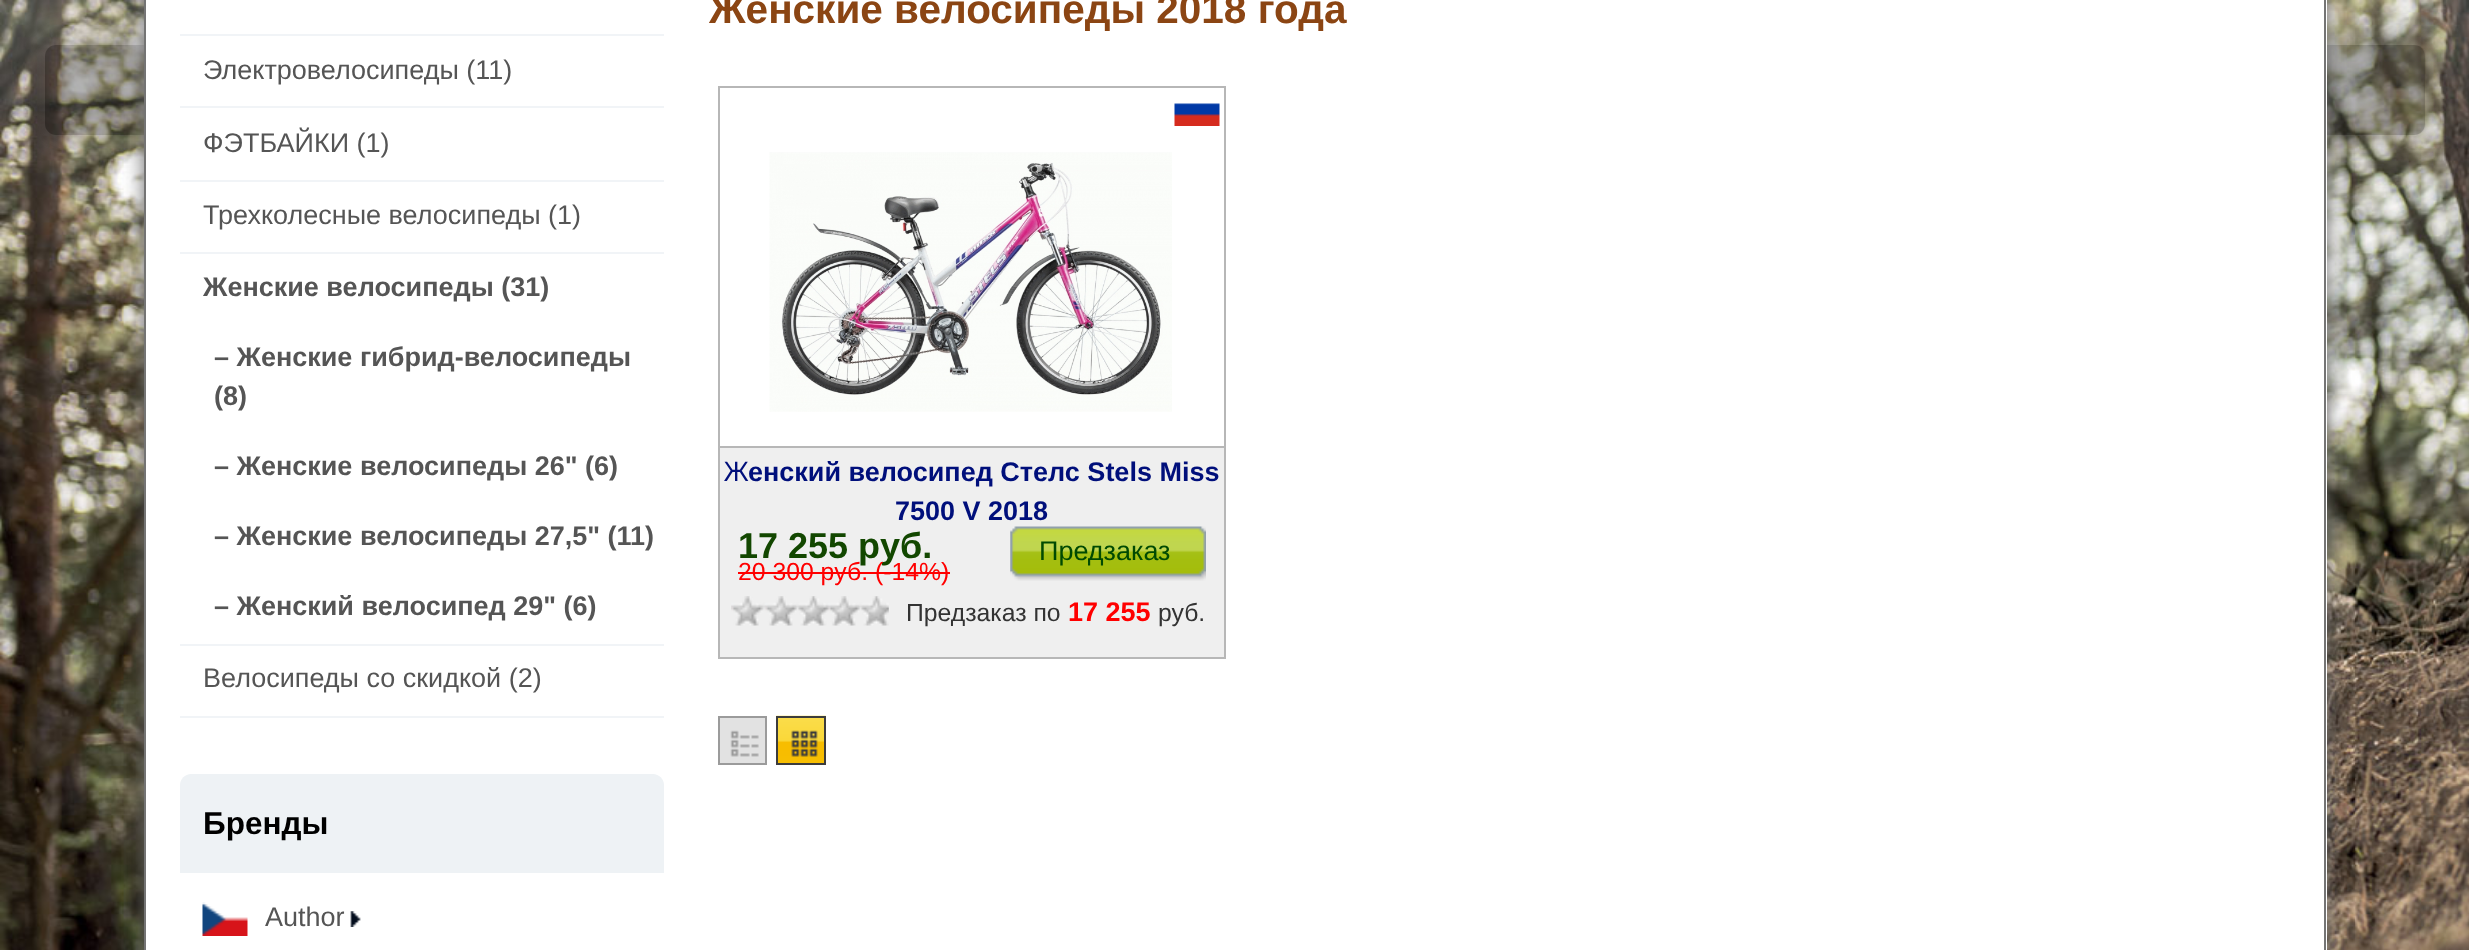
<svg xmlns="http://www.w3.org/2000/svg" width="2469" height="950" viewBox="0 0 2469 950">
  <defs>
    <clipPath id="clip1"><path d="M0 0H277V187H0ZM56 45H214C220 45 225 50 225 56V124C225 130 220 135 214 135H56C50 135 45 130 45 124V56C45 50 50 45 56 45Z" clip-rule="evenodd"/></clipPath>
    <clipPath id="clip2"><path d="M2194 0H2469V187H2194ZM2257 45H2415C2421 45 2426 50 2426 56V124C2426 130 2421 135 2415 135H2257C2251 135 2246 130 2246 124V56C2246 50 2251 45 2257 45Z" clip-rule="evenodd"/></clipPath>
  </defs>
  <rect width="100%" height="100%" fill="#fff"/>
  <image x="0" y="0" width="2469" height="950" href="img/1.png"/>
  <g clip-path="url(#clip1)">
    <rect x="45" y="45" width="180" height="90" rx="11" fill="#40404080" filter="blur(17px)"/>
  </g>
  <image x="45" y="45" width="99" height="90" href="img/2.png"/>
  <g clip-path="url(#clip2)">
    <rect x="2246" y="45" width="180" height="90" rx="11" fill="#40404080" filter="blur(17px)"/>
  </g>
  <image x="2327" y="45" width="99" height="90" href="img/12.png"/>
  <path d="M144 -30h2183v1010H144z" fill="#696969" filter="blur(10px)"/>
  <path d="M146 0h2181v950H146z" fill="#fff"/>
  <path d="M2324 0h2v950H2324z" fill="#747474"/>
  <path d="M144 0h2v950H144z" fill="#747474"/>
  <path d="M180 34h484v2H180z" fill="#f1f4f7"/>
  <path d="M180 106h484v2H180z" fill="#f1f4f7"/>
  <path d="M180 180h484v2H180z" fill="#f1f4f7"/>
  <path d="M180 252h484v2H180z" fill="#f1f4f7"/>
  <path d="M180 644h484v2H180z" fill="#f1f4f7"/>
  <path d="M180 716h484v2H180z" fill="#f1f4f7"/>
  <path d="M191 774H653C659 774 664 779 664 785V873H180V785C180 779 185 774 191 774Z" fill="#eef2f5"/>
  <image x="202" y="902" width="46" height="34" href="img/3.png"/>
  <image x="350" y="911" width="11" height="16" href="img/4.png"/>
  <path d="M720 448h504v209H720z" fill="#efefef"/>
  <path d="M719 87h506v571H719z" fill="none" stroke="#b7b7b7" stroke-width="2"/>
  <path d="M720 446h504v2H720z" fill="#b7b7b7"/>
  <image x="769" y="152" width="403" height="260" href="img/5.png"/>
  <image x="1174" y="103" width="46" height="23" href="img/6.png"/>
  <path d="M738 572h212v2H738z" fill="#f00"/>
  <image x="1010" y="526" width="196" height="55" href="img/7.png"/>
  <image x="731" y="596" width="158" height="30" href="img/8.png"/>
  <path d="M719 717h47v47H719z" fill="#e2e2e2" stroke="#9b9b9b" stroke-width="2"/>
  <image x="730" y="730" width="29" height="27" href="img/9.png"/>
  <image x="776" y="715" width="50" height="48" href="img/10.png"/>
  <path d="M777 717h48v47H777z" fill="none" stroke="#3c3c3c" stroke-width="2"/>
  <image x="791" y="730" width="27" height="27" href="img/11.png"/>
  <g font-family="Liberation Sans" font-size="27" fill="#555">
    <text x="203" y="79">Электровелосипеды (11)</text>
    <text x="203" y="152">ФЭТБАЙКИ (1)</text>
    <text x="203" y="224">Трехколесные велосипеды (1)</text>
  </g>
  <g font-family="Liberation Sans" font-size="27" font-weight="bold" fill="#555">
    <text x="203" y="296">Женские велосипеды (31)</text>
    <text x="214" y="366">– Женские гибрид-велосипеды</text>
    <text x="214" y="405">(8)</text>
    <text x="214" y="475">– Женские велосипеды 26" (6)</text>
    <text x="214" y="545">– Женские велосипеды 27,5" (11)</text>
    <text x="214" y="615">– Женский велосипед 29" (6)</text>
  </g>
  <text x="203" y="687" font-family="Liberation Sans" font-size="27" fill="#555">Велосипеды со скидкой (2)</text>
  <text x="203" y="834" font-family="Liberation Sans" font-size="31.5" font-weight="bold" fill="#000">Бренды</text>
  <text x="265" y="926" font-family="Liberation Sans" font-size="27" fill="#555">Author</text>
  <text x="709" y="23" font-family="Liberation Sans" font-size="40.5" font-weight="bold" fill="#8b4513">Женские велосипеды 2018 года</text>
  <text x="724" y="481" font-family="Noto Sans" font-size="27" fill="#000f7b">Ж</text>
  <g font-family="Liberation Sans" font-size="27" font-weight="bold" fill="#000f7b">
    <text x="748" y="481">енский велосипед Стелс Stels Miss</text>
    <text x="895" y="520">7500 V 2018</text>
  </g>
  <text x="738" y="558" font-family="Liberation Sans" font-size="36" font-weight="bold" fill="#124700">17 255 pуб.</text>
  <text x="738" y="580" font-family="Liberation Sans" font-size="24.75" fill="#f00">20 300 pуб. (-14%)</text>
  <text x="1039" y="560" font-family="Liberation Sans" font-size="27" fill="#004a02">Предзаказ</text>
  <text x="906" y="621" font-family="Liberation Sans" font-size="24.75" fill="#333">Предзаказ по</text>
  <text x="1068" y="621" font-family="Liberation Sans" font-size="27" font-weight="bold" fill="#f00">17 255</text>
  <text x="1158" y="621" font-family="Liberation Sans" font-size="24.75" fill="#333">руб.</text>
</svg>
